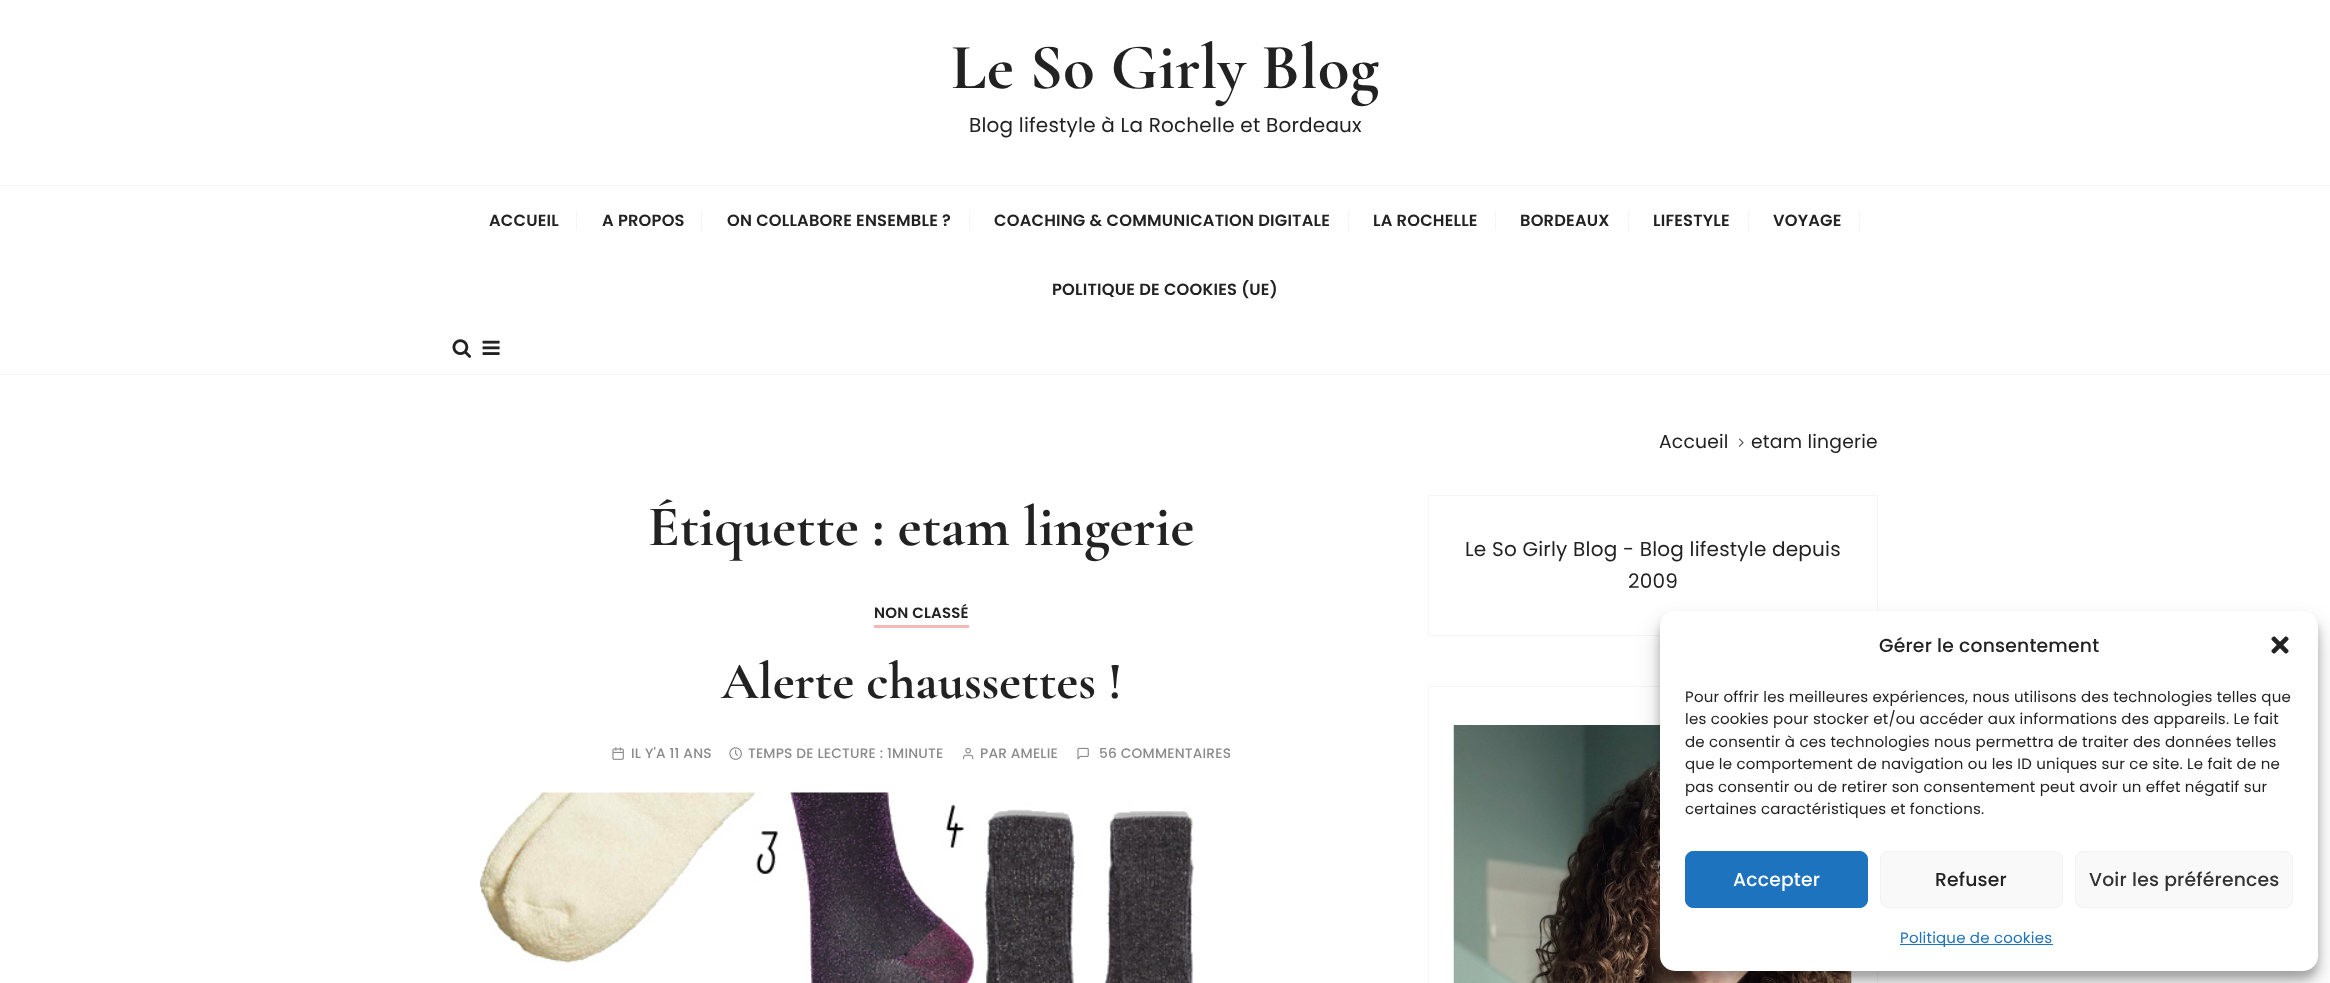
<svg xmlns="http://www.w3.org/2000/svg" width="2330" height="983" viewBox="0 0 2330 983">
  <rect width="100%" height="100%" fill="#fff"/>
  <path d="M0 185h2330v1H0z" fill="#f5f5f5"/>
  <path d="M0 374h2330v1H0z" fill="#f5f5f5"/>
  <path d="M576 211h1v20H576z" fill="#f5f5f5"/>
  <path d="M701 211h1v20H701z" fill="#f5f5f5"/>
  <path d="M969 211h1v20H969z" fill="#f5f5f5"/>
  <path d="M1348 211h1v20H1348z" fill="#f5f5f5"/>
  <path d="M1495 211h1v20H1495z" fill="#f5f5f5"/>
  <path d="M1628 211h1v20H1628z" fill="#f5f5f5"/>
  <path d="M1748 211h1v20H1748z" fill="#f5f5f5"/>
  <path d="M1859 211h1v20H1859z" fill="#f5f5f5"/>
  <image x="452" y="339" width="20" height="19" href="img/1.png"/>
  <image x="482" y="340" width="18" height="15" href="img/2.png"/>
  <image x="1738" y="438" width="6" height="9" href="img/3.png"/>
  <path d="M874 625h95v3H874z" fill="#f3b9b9"/>
  <image x="612" y="747" width="12" height="13" href="img/4.png"/>
  <image x="729" y="747" width="13" height="13" href="img/5.png"/>
  <image x="963" y="747" width="11" height="13" href="img/6.png"/>
  <image x="1077" y="747" width="12" height="13" href="img/7.png"/>
  <image x="479" y="792" width="715" height="191" href="img/8.png"/>
  <path d="M1428.5 495.5h449v140H1428.5z" fill="none" stroke="#f5f5f5"/>
  <path d="M1428.5 686.5h449v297H1428.5z" fill="none" stroke="#f5f5f5"/>
  <image x="1453" y="725" width="399" height="258" href="img/9.png"/>
  <rect x="1660" y="619" width="658" height="360" rx="15" fill="#0000003b" filter="blur(4px)"/>
  <rect x="1660" y="624" width="658" height="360" rx="15" fill="#00000030" filter="blur(12.5px)"/>
  <rect x="1660" y="611" width="658" height="360" rx="15" fill="#fff"/>
  <image x="2271" y="636" width="18" height="18" href="img/10.png"/>
  <rect x="1685.5" y="851.5" width="182" height="56" rx="7.5" fill="#1e73be" stroke="#1e73be"/>
  <rect x="1880.5" y="851.5" width="182" height="56" rx="7.5" fill="#f9f9f9" stroke="#f2f2f2"/>
  <rect x="2075.5" y="851.5" width="217" height="56" rx="7.5" fill="#f9f9f9" stroke="#f2f2f2"/>
  <path d="M1900 944h153v1H1900z" fill="#1e73be"/>
  <text x="951" y="88" font-family="Cormorant Garamond" font-size="65" font-weight="bold" letter-spacing="0.2" fill="#222">Le So Girly Blog</text>
  <text x="969" y="132" font-family="Poppins" font-size="20" letter-spacing="0.2" fill="#222">Blog lifestyle à La Rochelle et Bordeaux</text>
  <g font-family="Poppins" font-size="16.25" font-weight="600" letter-spacing="0.2" fill="#222">
    <text x="489" y="226">ACCUEIL</text>
    <text x="602" y="226">A PROPOS</text>
    <text x="727" y="226">ON COLLABORE ENSEMBLE ?</text>
    <text x="994" y="226">COACHING &amp; COMMUNICATION DIGITALE</text>
    <text x="1373" y="226">LA ROCHELLE</text>
    <text x="1520" y="226">BORDEAUX</text>
    <text x="1653" y="226">LIFESTYLE</text>
    <text x="1773" y="226">VOYAGE</text>
    <text x="1052" y="295">POLITIQUE DE COOKIES (UE)</text>
  </g>
  <g font-family="Poppins" font-size="18.75" letter-spacing="0.2" fill="#222">
    <text x="1659" y="448">Accueil</text>
    <text x="1751" y="448">etam lingerie</text>
  </g>
  <text x="648" y="545" font-family="Cormorant Garamond" font-size="57.5" font-weight="bold" fill="#222">Étiquette : etam lingerie</text>
  <text x="874" y="618" font-family="Poppins" font-size="15" font-weight="600" letter-spacing="0.2" fill="#222">NON CLASSÉ</text>
  <text x="721" y="698" font-family="Cormorant Garamond" font-size="52.5" font-weight="bold" fill="#222">Alerte chaussettes !</text>
  <g font-family="Poppins" font-size="13.75" font-weight="500" letter-spacing="0.2" fill="#8c8b8b">
    <text x="631" y="758">IL Y'A 11 ANS</text>
    <text x="748" y="758">TEMPS DE LECTURE : 1MINUTE</text>
    <text x="980" y="758">PAR AMELIE</text>
    <text x="1099" y="758">56 COMMENTAIRES</text>
  </g>
  <g font-family="Poppins" font-size="20" letter-spacing="0.2" fill="#222">
    <text x="1465" y="556">Le So Girly Blog - Blog lifestyle depuis</text>
    <text x="1628" y="588">2009</text>
  </g>
  <text x="1879" y="652" font-family="Poppins" font-size="18.75" font-weight="500" letter-spacing="0.2" fill="#222">Gérer le consentement</text>
  <g font-family="Poppins" font-size="15" letter-spacing="0.2" fill="#222">
    <text x="1685" y="702">Pour offrir les meilleures expériences, nous utilisons des technologies telles que</text>
    <text x="1685" y="724">les cookies pour stocker et/ou accéder aux informations des appareils. Le fait</text>
    <text x="1685" y="747">de consentir à ces technologies nous permettra de traiter des données telles</text>
    <text x="1685" y="769">que le comportement de navigation ou les ID uniques sur ce site. Le fait de ne</text>
    <text x="1685" y="792">pas consentir ou de retirer son consentement peut avoir un effet négatif sur</text>
    <text x="1685" y="814">certaines caractéristiques et fonctions.</text>
  </g>
  <text x="1733" y="886" font-family="Poppins" font-size="18.75" font-weight="500" letter-spacing="0.2" fill="#fff">Accepter</text>
  <text x="1935" y="886" font-family="Poppins" font-size="18.75" font-weight="500" letter-spacing="0.2" fill="#222">Refuser</text>
  <text x="2089" y="886" font-family="Poppins" font-size="18.75" font-weight="500" letter-spacing="0.2" fill="#333">Voir les préférences</text>
  <text x="1900" y="943" font-family="Poppins" font-size="15" letter-spacing="0.2" fill="#1e73be">Politique de cookies</text>
</svg>
